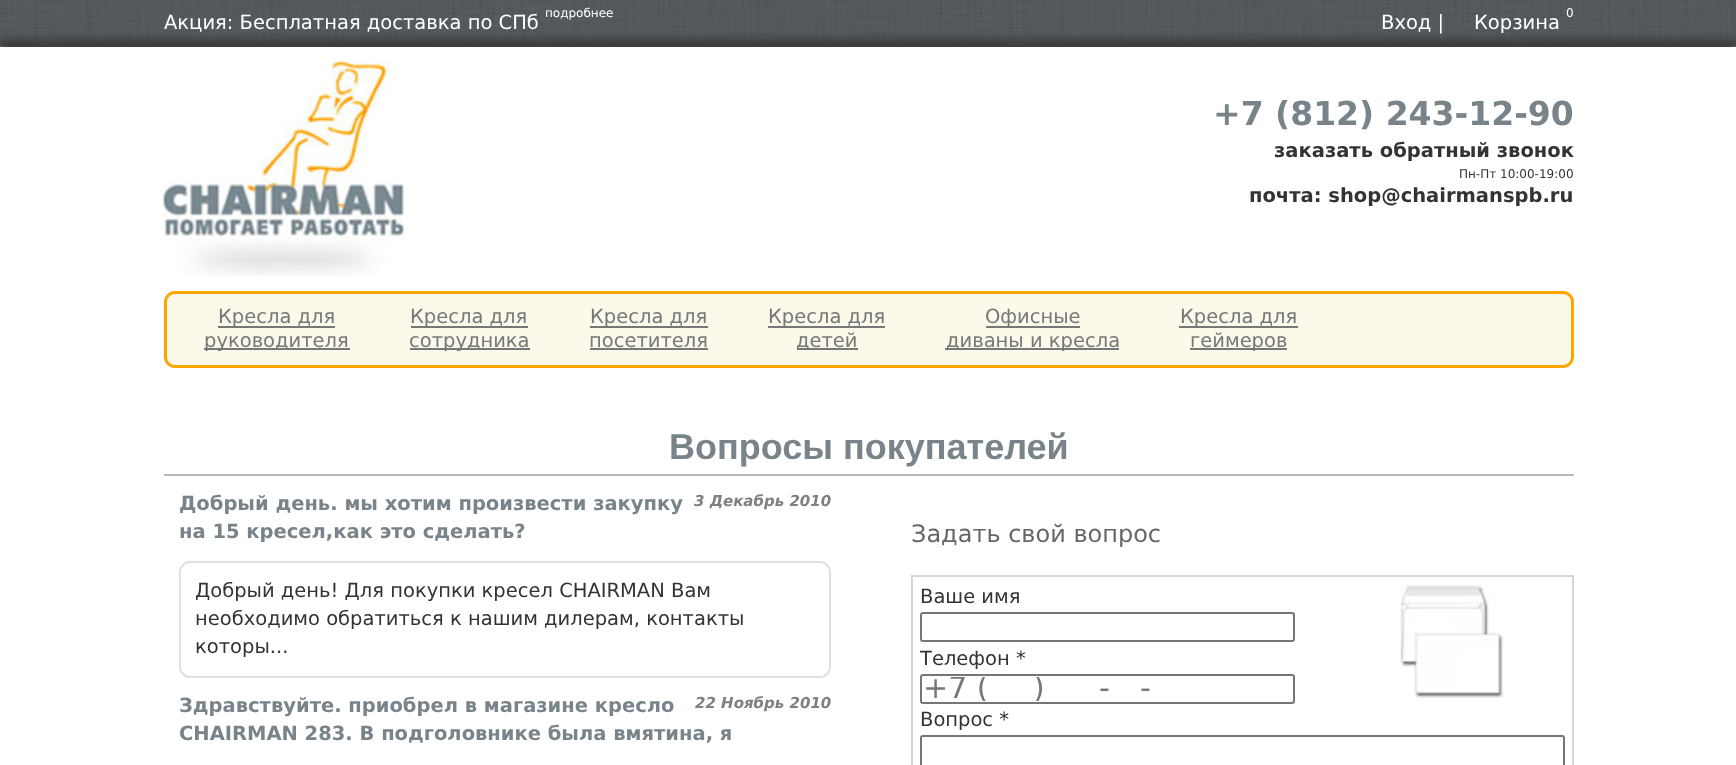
<svg xmlns="http://www.w3.org/2000/svg" width="1736" height="765" viewBox="0 0 1736 765">
  <defs>
    <clipPath id="clip1"><path d="M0 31h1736v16H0z"/></clipPath>
    <clipPath id="clip2"><path d="M923 677h369v24H923z"/></clipPath>
  </defs>
  <rect width="100%" height="100%" fill="#fff"/>
  <path d="M0 46h1736v1H0z" fill="#d3d3d3"/>
  <image x="0" y="0" width="1736" height="47" href="img/1.png"/>
  <g clip-path="url(#clip1)">
    <path d="M0 39h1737v351H0z" fill="#3c3c3c" filter="blur(4px)"/>
  </g>
  <image x="163" y="61" width="241" height="215" href="img/2.png"/>
  <rect x="165.5" y="292.5" width="1407" height="74" rx="9.5" fill="#fbf9ea" stroke="#ffa500" stroke-width="3"/>
  <path d="M218 326h117v2H218z" fill="#777"/>
  <path d="M204 348h146v2H204z" fill="#777"/>
  <path d="M411 326h117v2H411z" fill="#777"/>
  <path d="M410 348h120v2H410z" fill="#777"/>
  <path d="M590 326h118v2H590z" fill="#777"/>
  <path d="M590 348h118v2H590z" fill="#777"/>
  <path d="M768 326h117v2H768z" fill="#777"/>
  <path d="M797 348h61v2H797z" fill="#777"/>
  <path d="M986 326h94v2H986z" fill="#777"/>
  <path d="M945 348h174v2H945z" fill="#777"/>
  <path d="M1179 326h119v2H1179z" fill="#777"/>
  <path d="M1190 348h97v2H1190z" fill="#777"/>
  <path d="M164 474h1410v2H164z" fill="#b8b8b8"/>
  <rect x="180" y="562" width="650" height="115" rx="10" fill="none" stroke="#e0e0e0" stroke-width="2"/>
  <path d="M912 576h661v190H912z" fill="none" stroke="#d4d4d4" stroke-width="2"/>
  <rect x="921" y="613" width="373" height="28" rx="2" fill="none" stroke="#767676" stroke-width="2"/>
  <rect x="921" y="675" width="373" height="28" rx="2" fill="none" stroke="#767676" stroke-width="2"/>
  <rect x="921" y="736" width="643" height="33" rx="2" fill="none" stroke="#767676" stroke-width="2"/>
  <image x="1400" y="584" width="105" height="115" href="img/3.png"/>
  <text x="164" y="29" font-family="DejaVu Sans" font-size="19.5" fill="#fff">Акция: Бесплатная доставка по СПб</text>
  <text x="545" y="17" font-family="DejaVu Sans" font-size="12" fill="#fff">подробнее</text>
  <text x="1381" y="29" font-family="DejaVu Sans" font-size="19.5" fill="#fff">Вход |</text>
  <text x="1566" y="17" font-family="DejaVu Sans" font-size="12" fill="#fff">0</text>
  <text x="1474" y="29" font-family="DejaVu Sans" font-size="19.5" fill="#fff">Корзина</text>
  <text x="1213" y="125" font-family="DejaVu Sans" font-size="33" font-weight="bold" fill="#78838a">+7 (812) 243-12-90</text>
  <text x="1274" y="157" font-family="DejaVu Sans" font-size="19.5" font-weight="bold" fill="#333">заказать обратный звонок</text>
  <text x="1459" y="178" font-family="DejaVu Sans" font-size="12" fill="#333">Пн-Пт 10:00-19:00</text>
  <text x="1249" y="202" font-family="DejaVu Sans" font-size="19.5" font-weight="bold" fill="#333">почта: shop@chairmanspb.ru</text>
  <g font-family="DejaVu Sans" font-size="19.5" fill="#777">
    <text x="218" y="323">Кресла для</text>
    <text x="204" y="347">руководителя</text>
    <text x="410" y="323">Кресла для</text>
    <text x="409" y="347">сотрудника</text>
    <text x="590" y="323">Кресла для</text>
    <text x="589" y="347">посетителя</text>
    <text x="768" y="323">Кресла для</text>
    <text x="796" y="347">детей</text>
    <text x="985" y="323">Офисные</text>
    <text x="946" y="347">диваны и кресла</text>
    <text x="1180" y="323">Кресла для</text>
    <text x="1190" y="347">геймеров</text>
  </g>
  <text x="669" y="459" font-family="Liberation Sans" font-size="36" font-weight="bold" fill="#78838a">Вопросы покупателей</text>
  <text x="179" y="510" font-family="DejaVu Sans" font-size="19.5" font-weight="bold" fill="#78838a">Добрый день. мы хотим произвести закупку</text>
  <text x="694" y="506" font-family="DejaVu Sans" font-size="15" font-weight="bold" font-style="italic" fill="#808080">3 Декабрь 2010</text>
  <text x="179" y="538" font-family="DejaVu Sans" font-size="19.5" font-weight="bold" fill="#78838a">на 15 кресел,как это сделать?</text>
  <g font-family="DejaVu Sans" font-size="19.5" fill="#333">
    <text x="195" y="597">Добрый день! Для покупки кресел CHAIRMAN Вам</text>
    <text x="195" y="625">необходимо обратиться к нашим дилерам, контакты</text>
    <text x="195" y="653">которы...</text>
  </g>
  <text x="179" y="712" font-family="DejaVu Sans" font-size="19.5" font-weight="bold" fill="#78838a">Здравствуйте. приобрел в магазине кресло</text>
  <text x="695" y="708" font-family="DejaVu Sans" font-size="15" font-weight="bold" font-style="italic" fill="#808080">22 Ноябрь 2010</text>
  <text x="179" y="740" font-family="DejaVu Sans" font-size="19.5" font-weight="bold" fill="#78838a">CHAIRMAN 283. В подголовнике была вмятина, я</text>
  <text x="911" y="542" font-family="DejaVu Sans" font-size="24" fill="#666">Задать свой вопрос</text>
  <g font-family="DejaVu Sans" font-size="19.5" fill="#333">
    <text x="920" y="603">Ваше имя</text>
    <text x="920" y="665">Телефон *</text>
  </g>
  <g clip-path="url(#clip2)">
    <g font-family="DejaVu Sans" font-size="30" fill="#777">
      <text x="923" y="698">+7 (</text>
      <text x="1033" y="698">)</text>
    </g>
  </g>
  <g font-family="DejaVu Sans" font-size="30" fill="#777">
    <text x="1099" y="698">-</text>
    <text x="1140" y="698">-</text>
  </g>
  <text x="920" y="726" font-family="DejaVu Sans" font-size="19.5" fill="#333">Вопрос *</text>
</svg>
